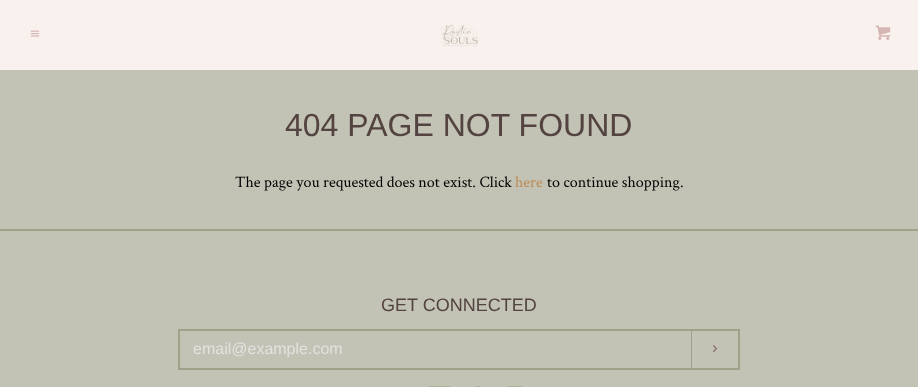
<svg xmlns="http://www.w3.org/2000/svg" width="918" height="387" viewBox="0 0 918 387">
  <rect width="100%" height="100%" fill="#c2c2b5"/>
  <path d="M0 0h918v70H0z" fill="#f8f1ee"/>
  <image x="30" y="30" width="10" height="7" href="img/1.png"/>
  <image x="440" y="24" width="38" height="23" href="img/2.png"/>
  <image x="875" y="25" width="16" height="15" href="img/3.png"/>
  <path d="M0 229h918v2H0z" fill="#a1a189"/>
  <path d="M179 330h560v39H179z" fill="none" stroke="#a1a189" stroke-width="2"/>
  <path d="M691 331h1v37H691z" fill="#a1a189"/>
  <image x="713" y="345" width="4" height="7" href="img/4.png"/>
  <image x="429" y="386" width="22" height="1" href="img/5.png"/>
  <image x="475" y="386" width="6" height="1" href="img/6.png"/>
  <image x="506" y="386" width="17" height="1" href="img/7.png"/>
  <text x="285" y="136" font-family="Liberation Sans" font-size="32" fill="#534341">404 PAGE NOT FOUND</text>
  <text x="235" y="187" font-family="Crimson Text" font-size="16" fill="#000">The page you requested does not exist. Click</text>
  <text x="515" y="187" font-family="Crimson Text" font-size="16" fill="#bd8c55">here</text>
  <text x="547" y="187" font-family="Crimson Text" font-size="16" fill="#000">to continue shopping.</text>
  <text x="381" y="311" font-family="Liberation Sans" font-size="18" fill="#534341">GET CONNECTED</text>
  <text x="193" y="354" font-family="Liberation Sans" font-size="16" fill="#e6e0e0">email@example.com</text>
</svg>
